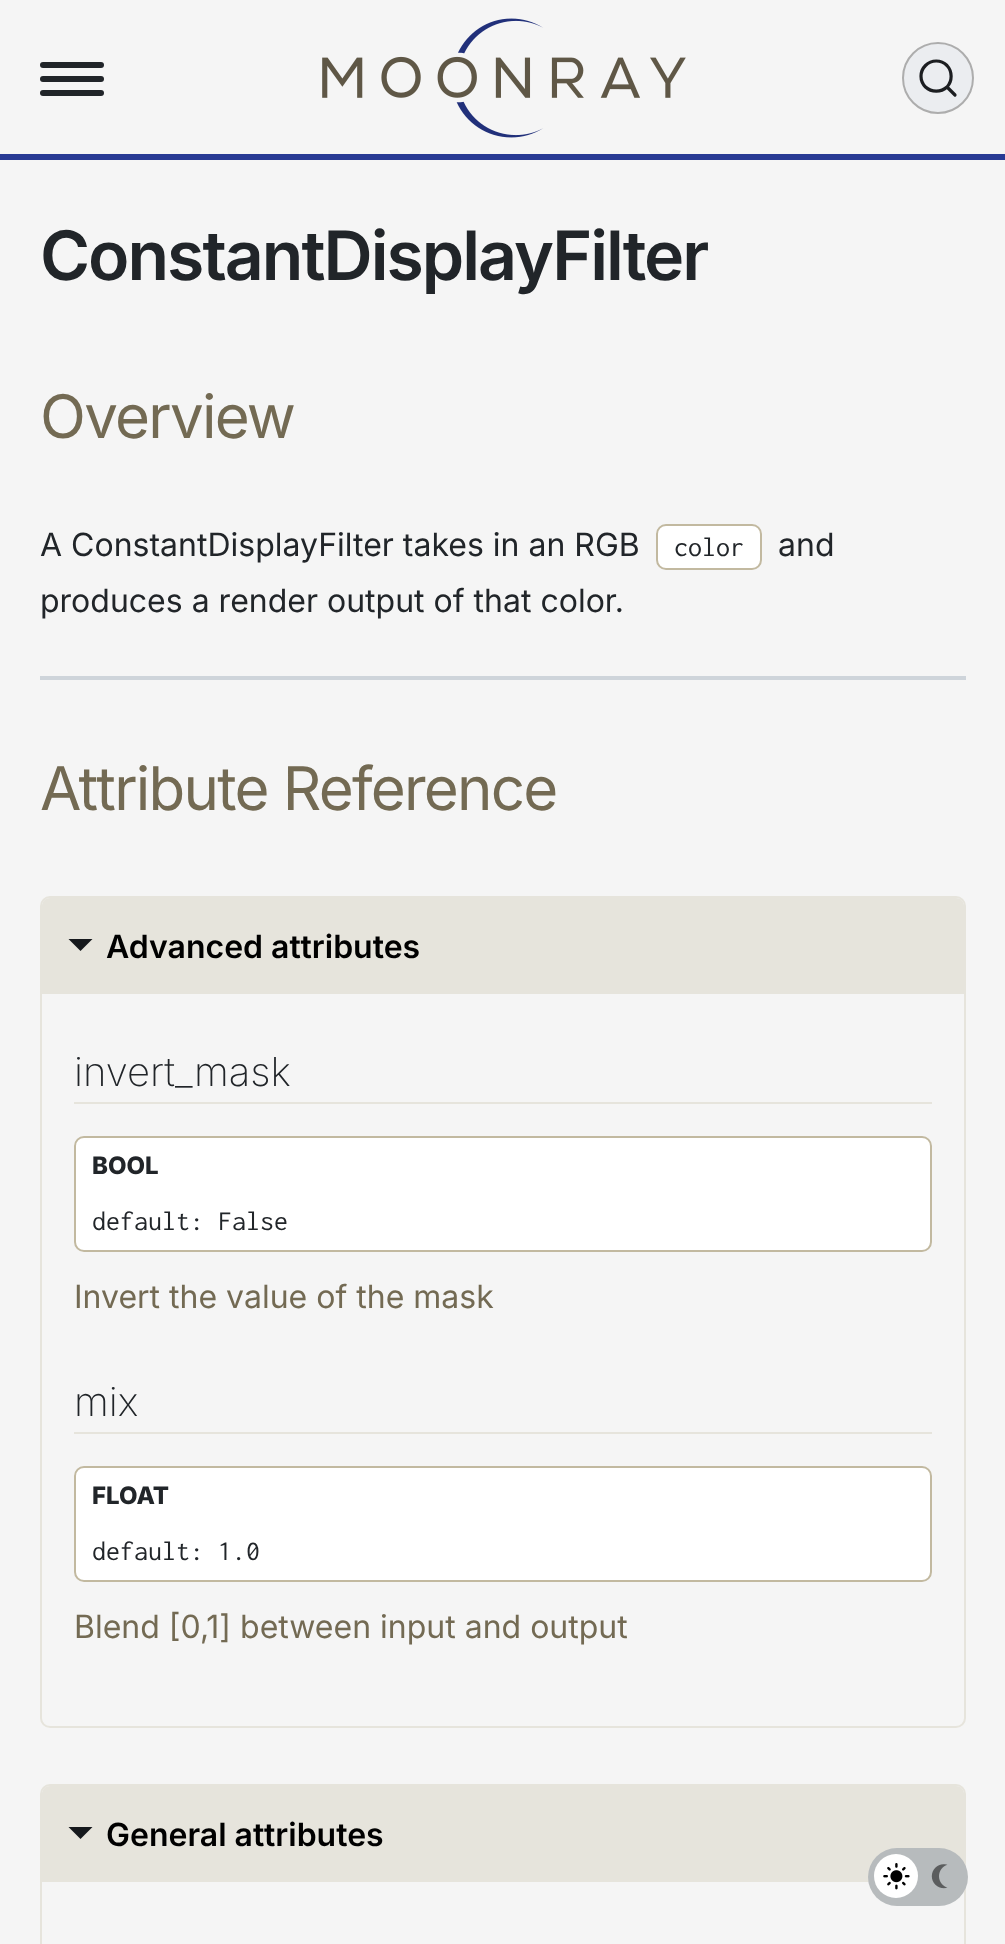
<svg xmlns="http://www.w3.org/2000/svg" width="1005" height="1944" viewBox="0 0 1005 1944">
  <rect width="100%" height="100%" fill="#f5f5f5"/>
  <path d="M0 154h1005v6H0z" fill="#283a94"/>
  <image x="322" y="18" width="364" height="120" href="img/1.png"/>
  <rect x="40" y="76" width="64" height="6" rx="3" fill="#212529"/>
  <rect x="40" y="62" width="64" height="6" rx="3" fill="#212529"/>
  <rect x="40" y="90" width="64" height="6" rx="3" fill="#212529"/>
  <circle cx="938" cy="78" r="35" fill="#ebedf0" stroke="#adadad" stroke-width="2"/>
  <path d="M947 87L955 95L947 87C941 92.5 931.5 92.5 925.5 87C919.5 81 919.5 71.5 925.5 65.5C931.5 59.5 941 59.5 947 65.5C952.5 71.5 952.5 81 947 87Z" fill="none" stroke="#1c1e21" stroke-width="3.2" stroke-linecap="round" stroke-linejoin="round"/>
  <rect x="41" y="1785" width="924" height="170" rx="9" fill="none" stroke="#e6e4dc" stroke-width="2"/>
  <path d="M50 1786H956C960.5 1786 964 1789.5 964 1794V1882H42V1794C42 1789.5 45.5 1786 50 1786Z" fill="#e6e4dc"/>
  <rect x="868" y="1848" width="100" height="58" rx="29" fill="#b7bbbd"/>
  <circle cx="896" cy="1876" r="22" fill="#fff"/>
  <image x="883" y="1863" width="27" height="27" href="img/2.png"/>
  <image x="931" y="1864" width="17" height="25" href="img/3.png"/>
  <rect x="657" y="525" width="104" height="44" rx="9" fill="#fff" stroke="#c2b9a0" stroke-width="2"/>
  <path d="M40 676h926v4H40z" fill="#ced4da"/>
  <rect x="41" y="897" width="924" height="830" rx="9" fill="none" stroke="#e6e4dc" stroke-width="2"/>
  <path d="M50 898H956C960.5 898 964 901.5 964 906V994H42V906C42 901.5 45.5 898 50 898Z" fill="#e6e4dc"/>
  <path d="M68.5 939H92.5L80.5 951Z" fill="#16191d"/>
  <path d="M74 1102h858v2H74z" fill="#e6e4dc"/>
  <rect x="75" y="1137" width="856" height="114" rx="9" fill="#fff" stroke="#c2b9a0" stroke-width="2"/>
  <path d="M74 1432h858v2H74z" fill="#e6e4dc"/>
  <rect x="75" y="1467" width="856" height="114" rx="9" fill="#fff" stroke="#c2b9a0" stroke-width="2"/>
  <path d="M68.5 1827H92.5L80.5 1839Z" fill="#16191d"/>
  <text x="40" y="280" font-family="Inter" font-size="68" font-weight="600" letter-spacing="-2" fill="#212529">ConstantDisplayFilter</text>
  <text x="40" y="438" font-family="Inter" font-size="60" letter-spacing="-1.75" fill="#736a53">Overview</text>
  <text x="40" y="556" font-family="Inter" font-size="32" fill="#212529">A ConstantDisplayFilter takes in an RGB</text>
  <text x="674" y="556" font-family="Inconsolata" font-size="28" fill="#212529">color</text>
  <g font-family="Inter" font-size="32" fill="#212529">
    <text x="778" y="556">and</text>
    <text x="40" y="612">produces a render output of that color.</text>
  </g>
  <text x="40" y="810" font-family="Inter" font-size="60" letter-spacing="-1.75" fill="#736a53">Attribute Reference</text>
  <text x="106" y="958" font-family="Inter" font-size="32" font-weight="600" fill="#000">Advanced attributes</text>
  <text x="74" y="1086" font-family="Inter" font-size="40" font-weight="200" fill="#212529">invert_mask</text>
  <text x="92" y="1174" font-family="Inter" font-size="24" font-weight="800" fill="#212529">BOOL</text>
  <text x="92" y="1230" font-family="Inconsolata" font-size="28" fill="#212529">default: False</text>
  <text x="74" y="1308" font-family="Inter" font-size="32" fill="#736a53">Invert the value of the mask</text>
  <text x="74" y="1416" font-family="Inter" font-size="40" font-weight="200" fill="#212529">mix</text>
  <text x="92" y="1504" font-family="Inter" font-size="24" font-weight="800" fill="#212529">FLOAT</text>
  <text x="92" y="1560" font-family="Inconsolata" font-size="28" fill="#212529">default: 1.0</text>
  <text x="74" y="1638" font-family="Inter" font-size="32" fill="#736a53">Blend [0,1] between input and output</text>
  <text x="106" y="1846" font-family="Inter" font-size="32" font-weight="600" fill="#000">General attributes</text>
</svg>
